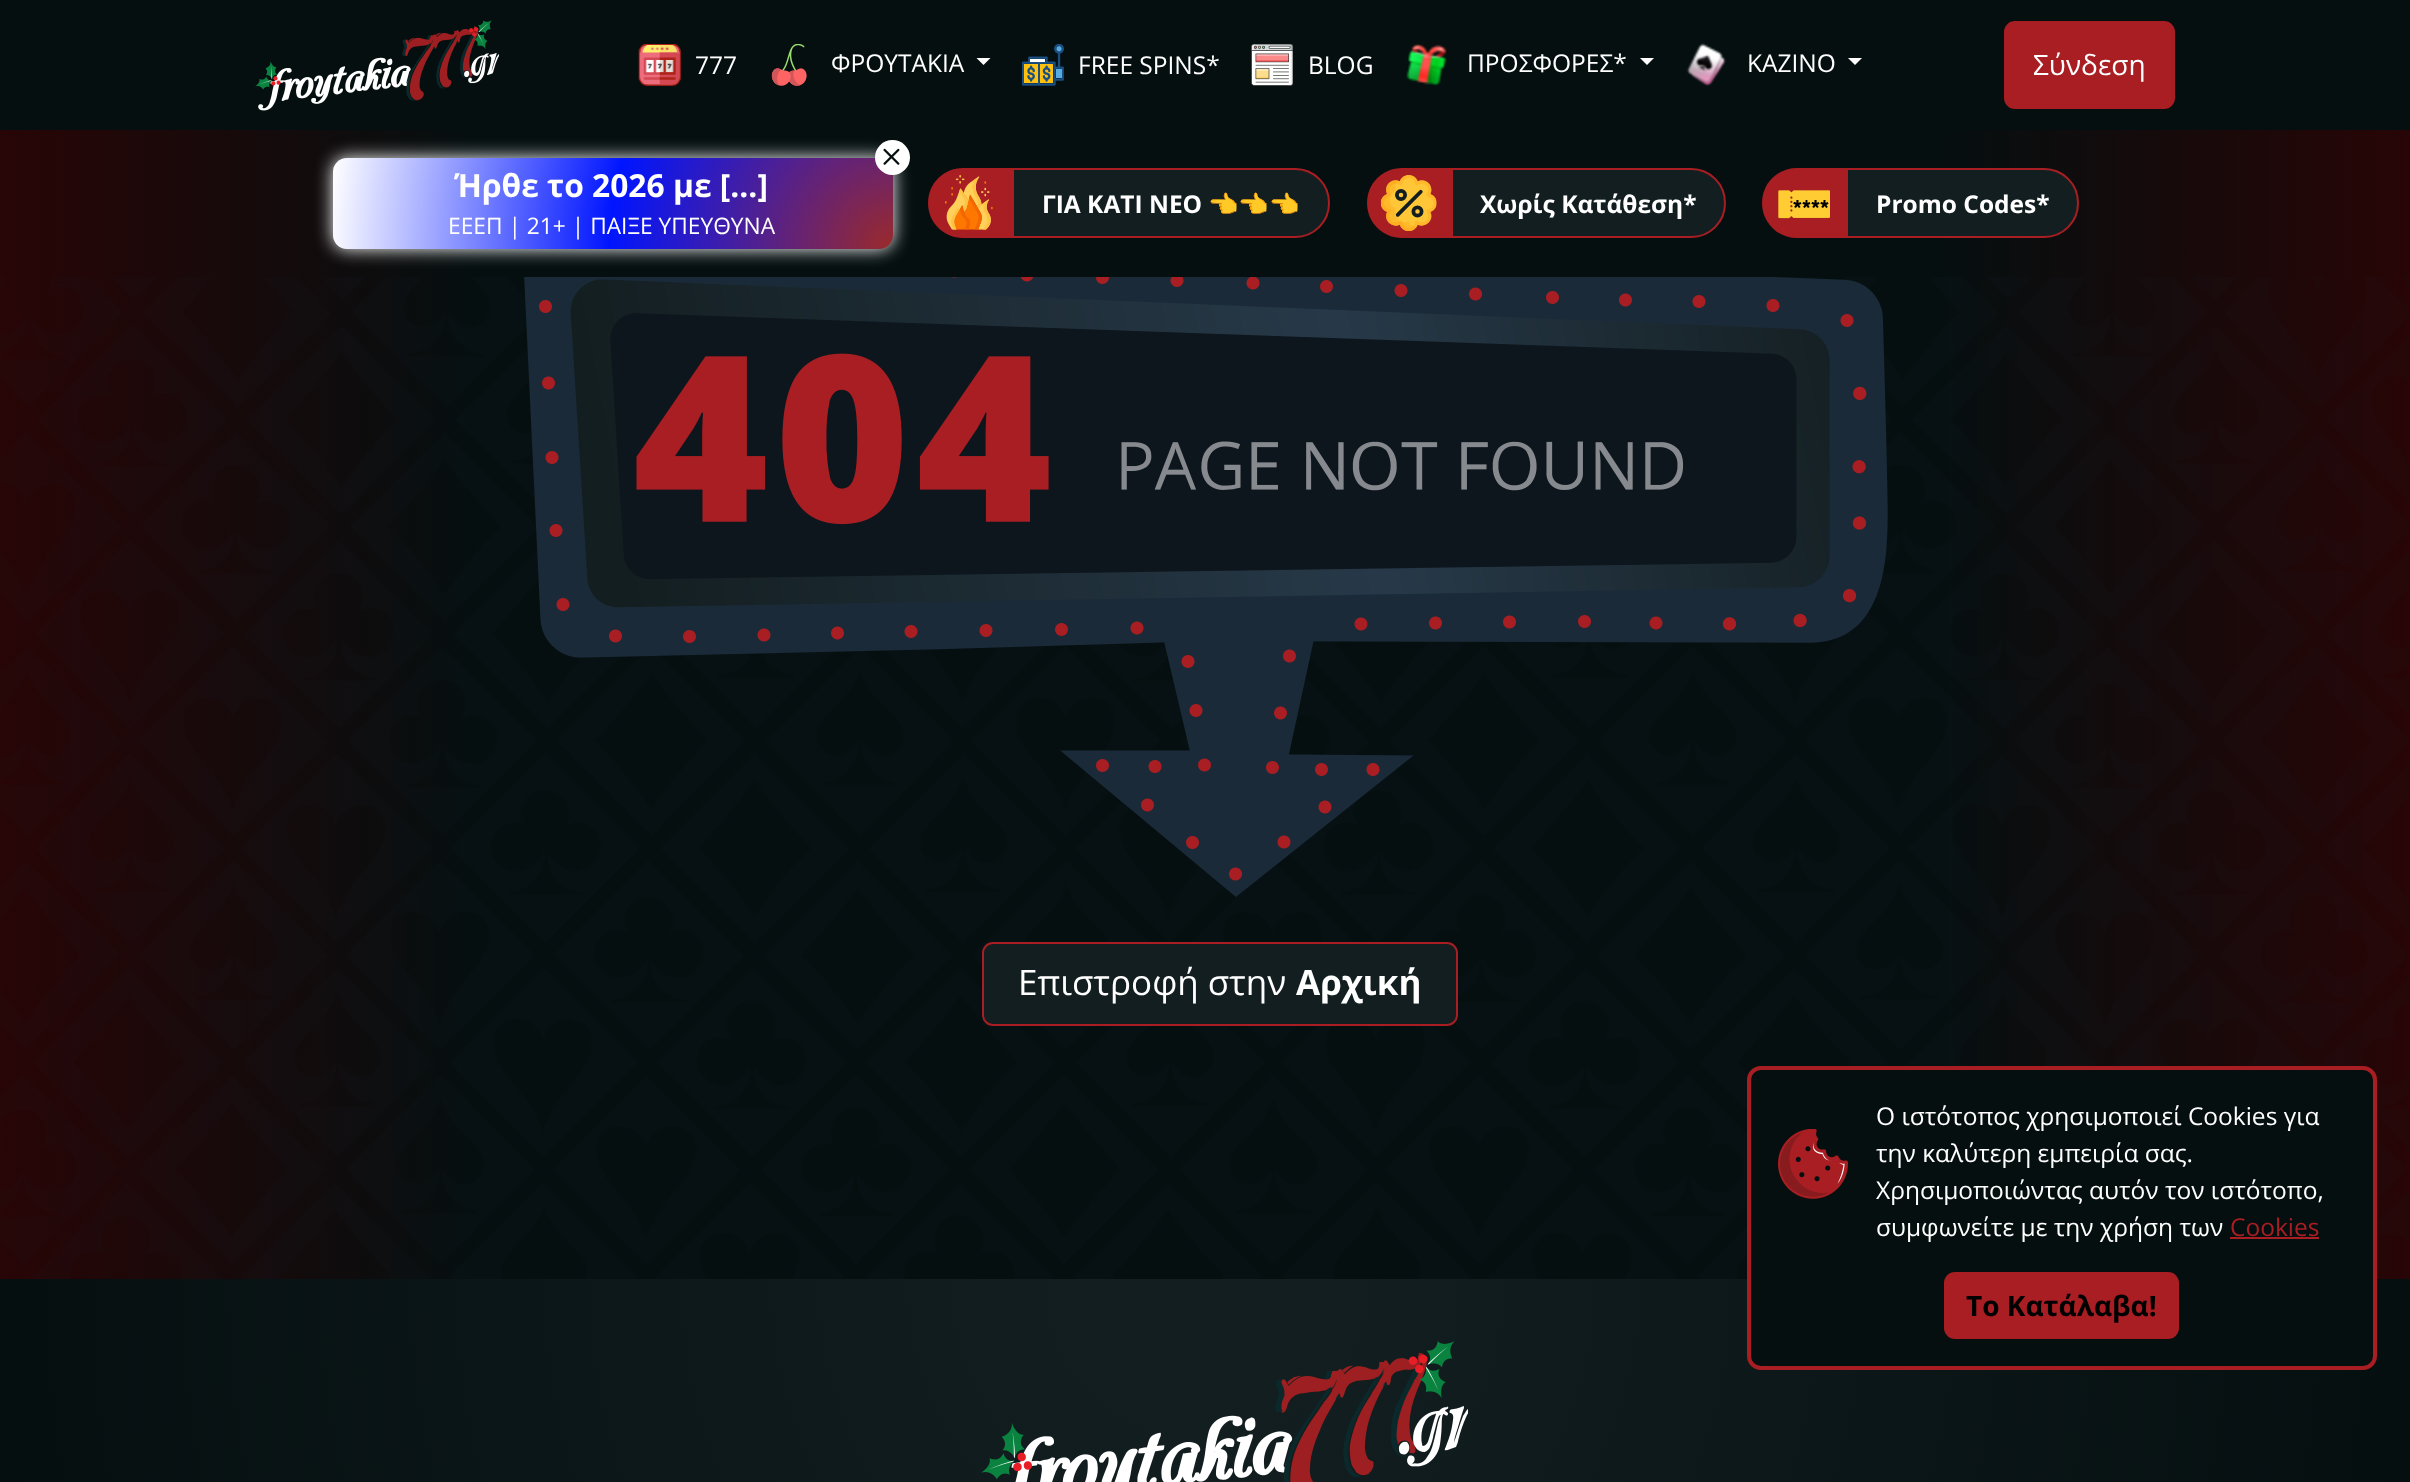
<svg xmlns="http://www.w3.org/2000/svg" width="2410" height="1482" viewBox="0 0 2410 1482">
  <defs>
    <linearGradient id="g1" gradientUnits="userSpaceOnUse" x1="0" y1="203" x2="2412" y2="203"><stop offset="0" stop-color="#280506"/><stop offset="0.2" stop-color="#050f10"/><stop offset="0.8" stop-color="#050f10"/><stop offset="1" stop-color="#280506"/></linearGradient>
    <radialGradient id="g2" gradientUnits="userSpaceOnUse" cx="893" cy="249" r="567"><stop offset="0" stop-color="#9b2a2a"/><stop offset="0.5" stop-color="#0015ff"/><stop offset="1" stop-color="#fff"/></radialGradient>
    <clipPath id="clip1"><path d="M1012 168H1295C1314.5 168 1330 183.5 1330 203C1330 222.5 1314.5 238 1295 238H1012Z"/></clipPath>
    <clipPath id="clip2"><path d="M1451 168H1691C1710.5 168 1726 183.5 1726 203C1726 222.5 1710.5 238 1691 238H1451Z"/></clipPath>
    <clipPath id="clip3"><path d="M1846 168H2044C2063.5 168 2079 183.5 2079 203C2079 222.5 2063.5 238 2044 238H1846Z"/></clipPath>
    <radialGradient id="g3" gradientUnits="userSpaceOnUse" cx="0" cy="0" r="1" gradientTransform="matrix(1209 0 0 1212 1206 1279)"><stop offset="0.1" stop-color="#131e20"/><stop offset="1" stop-color="#050f10"/></radialGradient>
  </defs>
  <rect width="100%" height="100%" fill="#fff"/>
  <image x="0" y="277" width="2410" height="1002" href="img/1.png"/>
  <path d="M0 0h2410v130H0z" fill="#050f10"/>
  <image x="255" y="20" width="244" height="91" href="img/2.png"/>
  <image x="638" y="44" width="43" height="42" href="img/3.png"/>
  <image x="771" y="44" width="36" height="42" href="img/4.png"/>
  <path d="M976.5 58H990.5L983.5 65Z" fill="#fff"/>
  <image x="1022" y="44" width="42" height="42" href="img/5.png"/>
  <image x="1251" y="44" width="42" height="42" href="img/6.png"/>
  <image x="1406" y="43" width="41" height="43" href="img/7.png"/>
  <path d="M1640 58H1654L1647 65Z" fill="#fff"/>
  <image x="1686" y="43" width="40" height="43" href="img/8.png"/>
  <path d="M1848 58H1862L1855 65Z" fill="#fff"/>
  <rect x="2005" y="22" width="169" height="86" rx="10" fill="#a81e22" stroke="#a81e22" stroke-width="2"/>
  <path d="M0 130h2410v147H0z" fill="url(#g1)"/>
  <rect x="333" y="158" width="560" height="91" rx="14" fill="#fff" filter="blur(9px)"/>
  <rect x="333" y="158" width="560" height="91" rx="14" fill="url(#g2)"/>
  <circle cx="892.5" cy="157.5" r="17.5" fill="#fff"/>
  <image x="883" y="148" width="17" height="17" href="img/9.png"/>
  <path d="M963 168H1012V238H963C943.5 238 928 222.5 928 203C928 183.5 943.5 168 963 168Z" fill="#a81e22"/>
  <image x="945" y="175" width="48" height="55" href="img/10.png"/>
  <g clip-path="url(#clip1)">
    <path d="M1014 168h314v70H1014z" fill="#131e20"/>
  </g>
  <path d="M1013 169H1295C1314 169 1329 184 1329 203C1329 222 1314 237 1295 237H1013Z" fill="none" stroke="#a81e22" stroke-width="2"/>
  <path d="M1402 168H1451V238H1402C1382.5 238 1367 222.5 1367 203C1367 183.5 1382.5 168 1402 168Z" fill="#a81e22"/>
  <image x="1381" y="175" width="56" height="56" href="img/11.png"/>
  <g clip-path="url(#clip2)">
    <path d="M1453 168h271v70H1453z" fill="#131e20"/>
  </g>
  <path d="M1452 169H1691C1710 169 1725 184 1725 203C1725 222 1710 237 1691 237H1452Z" fill="none" stroke="#a81e22" stroke-width="2"/>
  <path d="M1797 168H1846V238H1797C1777.5 238 1762 222.5 1762 203C1762 183.5 1777.5 168 1797 168Z" fill="#a81e22"/>
  <image x="1778" y="190" width="52" height="29" href="img/12.png"/>
  <g clip-path="url(#clip3)">
    <path d="M1848 168h229v70H1848z" fill="#131e20"/>
  </g>
  <path d="M1847 169H2044C2063 169 2078 184 2078 203C2078 222 2063 237 2044 237H1847Z" fill="none" stroke="#a81e22" stroke-width="2"/>
  <image x="524" y="277" width="1364" height="620" href="img/13.png"/>
  <rect x="983" y="943" width="474" height="82" rx="10" fill="#131e20" stroke="#a81e22" stroke-width="2"/>
  <path d="M0 1279h2410v203H0z" fill="url(#g3)"/>
  <rect x="1749" y="1068" width="626" height="300" rx="12" fill="#050f10" stroke="#a81e22" stroke-width="4"/>
  <image x="1778" y="1129" width="70" height="70" href="img/14.png"/>
  <path d="M2230 1237h89v2H2230z" fill="#a81e22"/>
  <rect x="1944" y="1272" width="235" height="67" rx="11" fill="#a81e22"/>
  <image x="981" y="1341" width="487" height="141" href="img/15.png"/>
  <g font-family="Open Sans" font-size="24.5" fill="#fff">
    <text x="695" y="74">777</text>
    <text x="831" y="72">ΦΡΟΥΤΑΚΙΑ</text>
    <text x="1078" y="74">FREE SPINS*</text>
    <text x="1308" y="74">BLOG</text>
    <text x="1467" y="72">ΠΡΟΣΦΟΡΕΣ*</text>
    <text x="1747" y="72">ΚΑΖΙΝΟ</text>
  </g>
  <text x="2033" y="75" font-family="Open Sans" font-size="28" fill="#fff">Σύνδεση</text>
  <text x="454" y="197" font-family="Open Sans" font-size="31.75" font-weight="bold" fill="#fff">Ήρθε το 2026 με [...]</text>
  <text x="448" y="234" font-family="Open Sans" font-size="22.75" fill="#fff">ΕΕΕΠ | 21+ | ΠΑΙΞΕ ΥΠΕΥΘΥΝΑ</text>
  <text x="1042" y="213" font-family="Open Sans" font-size="24.5" font-weight="bold" fill="#fff">ΓΙΑ ΚΑΤΙ ΝΕΟ</text>
  <text x="1208" y="213" font-family="Noto Color Emoji" font-size="24.5" font-weight="bold" fill="#fff">👈👈👈</text>
  <g font-family="Open Sans" font-size="24.5" font-weight="bold" fill="#fff">
    <text x="1480" y="213">Χωρίς Κατάθεση*</text>
    <text x="1876" y="213">Promo Codes*</text>
  </g>
  <text x="1018" y="995" font-family="Open Sans" font-size="35" fill="#fff">Επιστροφή στην</text>
  <text x="1296" y="995" font-family="Open Sans" font-size="35" font-weight="bold" fill="#fff">Αρχική</text>
  <g font-family="Open Sans" font-size="24.5" fill="#fff">
    <text x="1876" y="1125">Ο ιστότοπος χρησιμοποιεί Cookies για</text>
    <text x="1876" y="1162">την καλύτερη εμπειρία σας.</text>
    <text x="1876" y="1199">Χρησιμοποιώντας αυτόν τον ιστότοπο,</text>
    <text x="1876" y="1236">συμφωνείτε με την χρήση των</text>
  </g>
  <text x="2230" y="1236" font-family="Open Sans" font-size="24.5" fill="#a81e22">Cookies</text>
  <text x="1966" y="1316" font-family="Open Sans" font-size="28" font-weight="bold" fill="#000">Το Κατάλαβα!</text>
</svg>
